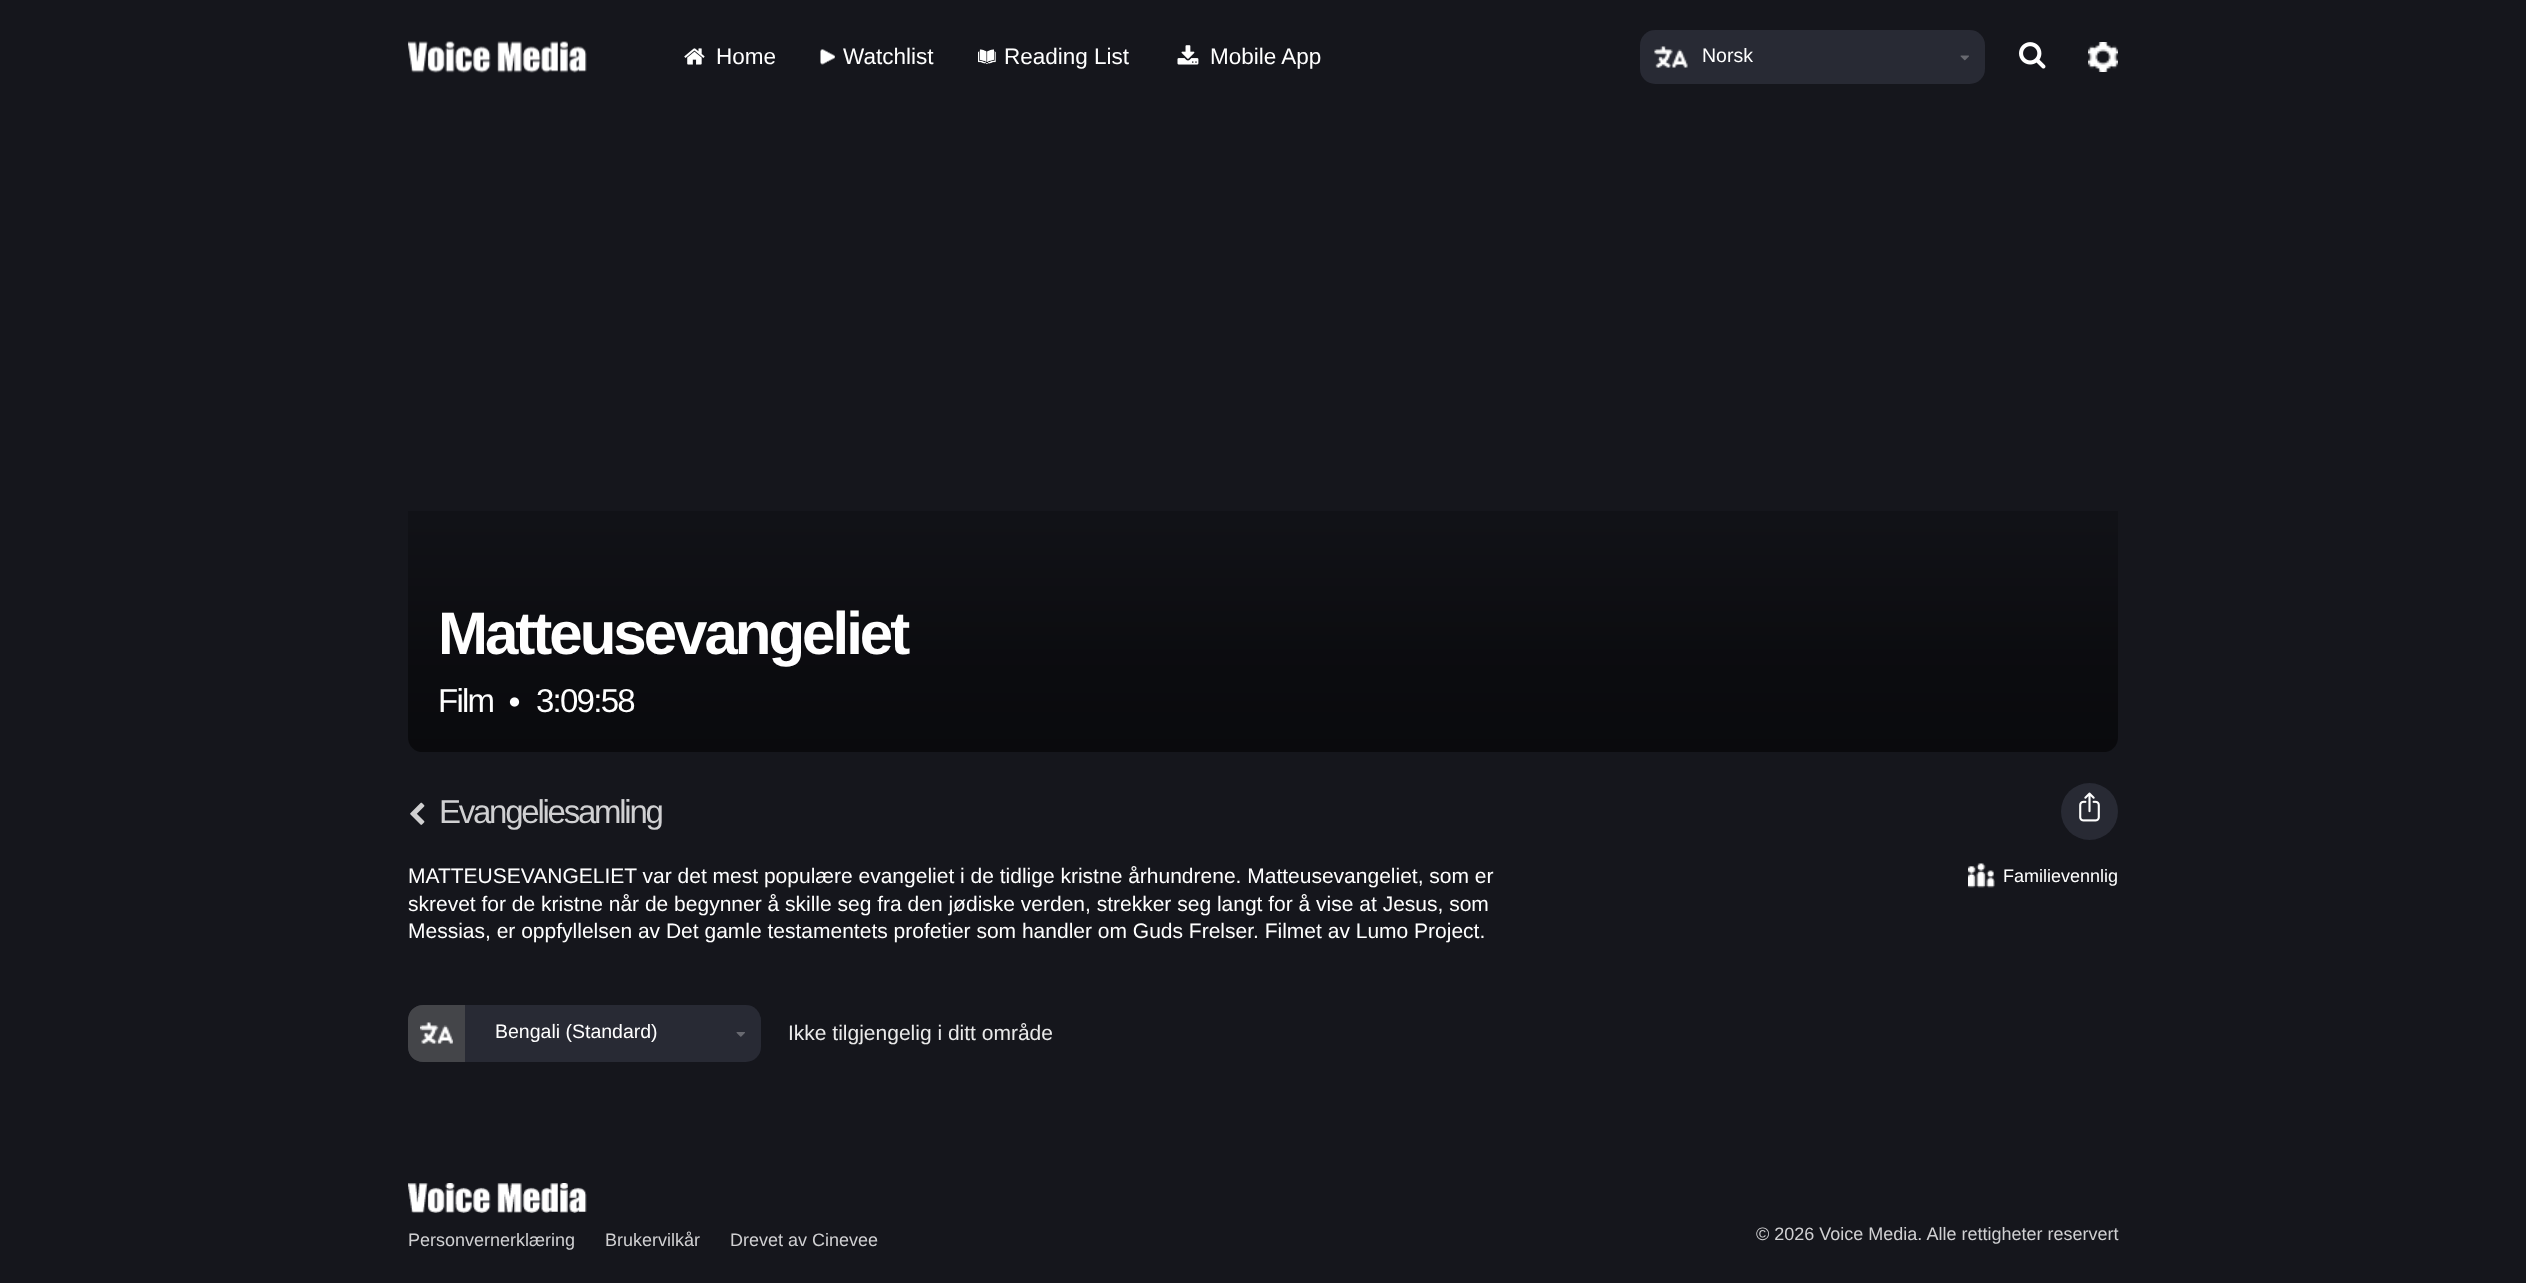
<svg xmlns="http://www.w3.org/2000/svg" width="2526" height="1283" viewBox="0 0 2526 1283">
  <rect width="100%" height="100%" fill="#15161c"/>
  <image x="408" y="41" width="179" height="32" href="img/1.png"/>
  <image x="684" y="48" width="21" height="17" href="img/2.png"/>
  <image x="820" y="49" width="15" height="16" href="img/3.png"/>
  <image x="978" y="49" width="18" height="15" href="img/4.png"/>
  <image x="1177" y="45" width="22" height="20" href="img/5.png"/>
  <rect x="1640" y="30" width="345" height="54" rx="15" fill="#282a34"/>
  <image x="1654" y="46" width="34" height="22" href="img/6.png"/>
  <image x="1960" y="55" width="9" height="6" href="img/7.png"/>
  <image x="2019" y="42" width="27" height="27" href="img/8.png"/>
  <image x="2088" y="42" width="30" height="30" href="img/9.png"/>
  <image x="408" y="511" width="1710" height="241" href="img/10.png"/>
  <image x="509" y="697" width="11" height="10" href="img/11.png"/>
  <image x="410" y="802" width="15" height="23" href="img/12.png"/>
  <circle cx="2089.5" cy="811.5" r="28.5" fill="#282a34"/>
  <image x="2079" y="792" width="21" height="30" href="img/13.png"/>
  <image x="1968" y="863" width="27" height="25" href="img/14.png"/>
  <rect x="408" y="1005" width="353" height="57" rx="15" fill="#282a34"/>
  <path d="M423 1005H465V1062H423C414.5 1062 408 1055.5 408 1047V1020C408 1011.5 414.5 1005 423 1005Z" fill="#444549"/>
  <image x="420" y="1022" width="33" height="22" href="img/15.png"/>
  <image x="736" y="1032" width="9" height="5" href="img/16.png"/>
  <image x="408" y="1183" width="179" height="30" href="img/17.png"/>
  <g font-family="Liberation Sans" font-size="22.5" fill="#fff">
    <text x="716" y="64">Home</text>
    <text x="843" y="64">Watchlist</text>
    <text x="1004" y="64">Reading List</text>
    <text x="1210" y="64">Mobile App</text>
  </g>
  <text x="1702" y="62" font-family="Liberation Sans" font-size="19.5" fill="#fff">Norsk</text>
  <text x="438" y="654" font-family="Liberation Sans" font-size="60" font-weight="bold" letter-spacing="-3" fill="#fff">Matteusevangeliet</text>
  <g font-family="Liberation Sans" font-size="33" letter-spacing="-1.75" fill="#fff">
    <text x="438" y="712">Film</text>
    <text x="536" y="712">3:09:58</text>
  </g>
  <text x="439" y="823" font-family="Liberation Sans" font-size="33" letter-spacing="-2.25" fill="#d0d0d2">Evangeliesamling</text>
  <g font-family="Liberation Sans" font-size="21" fill="#fff">
    <text x="408" y="883">MATTEUSEVANGELIET var det mest populære evangeliet i de tidlige kristne århundrene. Matteusevangeliet, som er</text>
    <text x="408" y="911">skrevet for de kristne når de begynner å skille seg fra den jødiske verden, strekker seg langt for å vise at Jesus, som</text>
    <text x="408" y="938">Messias, er oppfyllelsen av Det gamle testamentets profetier som handler om Guds Frelser. Filmet av Lumo Project.</text>
  </g>
  <text x="2003" y="882" font-family="Liberation Sans" font-size="18" fill="#fff">Familievennlig</text>
  <text x="495" y="1038" font-family="Liberation Sans" font-size="19.5" fill="#fff">Bengali (Standard)</text>
  <text x="788" y="1040" font-family="Liberation Sans" font-size="21" fill="#eaeaea">Ikke tilgjengelig i ditt område</text>
  <g font-family="Liberation Sans" font-size="18" fill="#d0d0d2">
    <text x="408" y="1246">Personvernerklæring</text>
    <text x="605" y="1246">Brukervilkår</text>
    <text x="730" y="1246">Drevet av Cinevee</text>
    <text x="1756" y="1240">© 2026 Voice Media. Alle rettigheter reservert</text>
  </g>
</svg>
